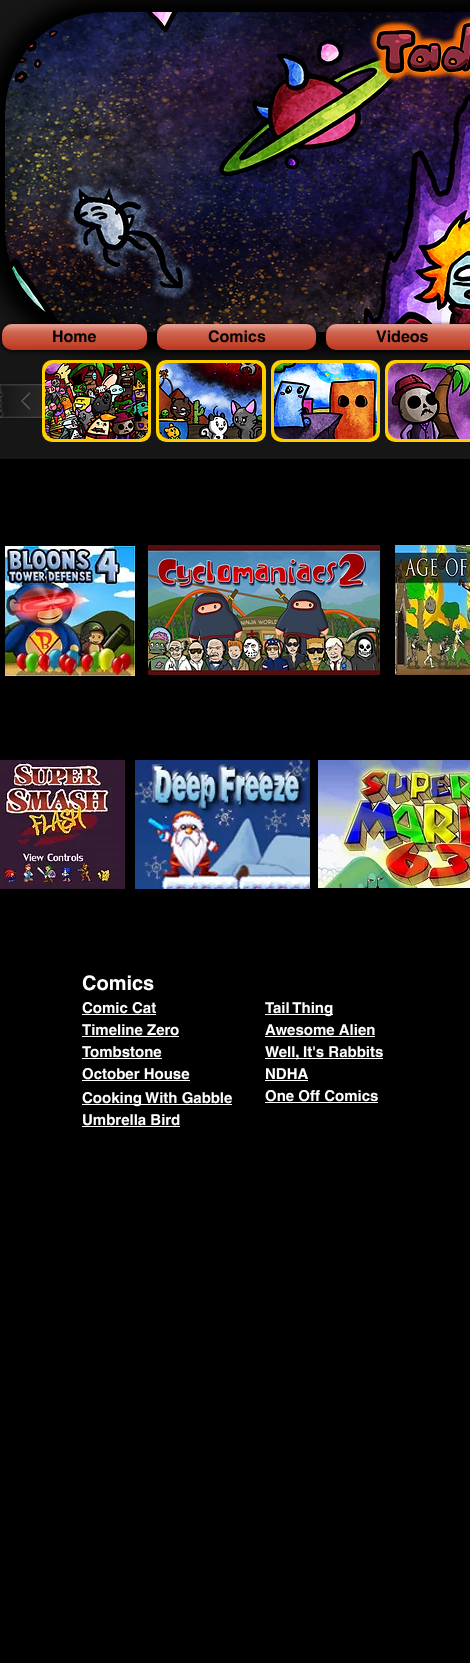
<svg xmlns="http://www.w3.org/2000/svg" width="470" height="1663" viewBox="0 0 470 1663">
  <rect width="100%" height="100%" fill="#000"/>
  <path d="M0 0h470v459H0z" fill="#161616"/>
  <rect x="-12" y="-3" width="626" height="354" rx="117" fill="#000" filter="blur(9px)"/>
  <image x="5" y="12" width="465" height="320" href="img/1.png"/>
  <image x="369" y="15" width="101" height="68" href="img/2.png"/>
  <rect x="2" y="325" width="145" height="26" rx="10" fill="#000" filter="blur(2px)"/>
  <rect x="2" y="324" width="145" height="26" rx="10" fill="#d32300"/>
  <image x="2" y="324" width="145" height="26" href="img/3.png"/>
  <image x="2" y="324" width="145" height="26" href="img/4.png"/>
  <rect x="157" y="325" width="159" height="26" rx="10" fill="#000" filter="blur(2px)"/>
  <rect x="157" y="324" width="159" height="26" rx="10" fill="#d32300"/>
  <image x="157" y="324" width="159" height="26" href="img/5.png"/>
  <image x="157" y="324" width="159" height="26" href="img/6.png"/>
  <rect x="326" y="325" width="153" height="26" rx="10" fill="#000" filter="blur(2px)"/>
  <rect x="326" y="324" width="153" height="26" rx="10" fill="#d32300"/>
  <image x="326" y="324" width="144" height="26" href="img/7.png"/>
  <image x="326" y="324" width="144" height="26" href="img/8.png"/>
  <rect x="43.5" y="361.5" width="106" height="79" rx="8.5" fill="#ffd000" stroke="#ffd000" stroke-width="3"/>
  <image x="45" y="363" width="103" height="76" href="img/10.png"/>
  <image x="0" y="382" width="71" height="38" href="img/9.png"/>
  <rect x="157.5" y="361.5" width="107" height="79" rx="8.5" fill="#ffd000" stroke="#ffd000" stroke-width="3"/>
  <image x="159" y="363" width="103" height="76" href="img/11.png"/>
  <rect x="272.5" y="361.5" width="106" height="79" rx="8.5" fill="#ffd000" stroke="#ffd000" stroke-width="3"/>
  <image x="274" y="363" width="103" height="76" href="img/12.png"/>
  <rect x="386.5" y="361.5" width="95" height="79" rx="8.5" fill="#ffd000" stroke="#ffd000" stroke-width="3"/>
  <image x="388" y="363" width="82" height="76" href="img/13.png"/>
  <image x="5" y="546" width="130" height="130" href="img/14.png"/>
  <image x="148" y="545" width="232" height="130" href="img/15.png"/>
  <image x="395" y="545" width="75" height="130" href="img/16.png"/>
  <image x="0" y="760" width="125" height="129" href="img/17.png"/>
  <image x="135" y="760" width="175" height="129" href="img/18.png"/>
  <image x="318" y="760" width="152" height="128" href="img/19.png"/>
  <path d="M82 1014h74v1H82z" fill="#fff"/>
  <path d="M265 1014h68v1H265z" fill="#fff"/>
  <path d="M82 1036h97v1H82z" fill="#fff"/>
  <path d="M265 1036h110v1H265z" fill="#fff"/>
  <path d="M82 1058h80v1H82z" fill="#fff"/>
  <path d="M265 1058h118v1H265z" fill="#fff"/>
  <path d="M82 1080h108v1H82z" fill="#fff"/>
  <path d="M265 1080h43v1H265z" fill="#fff"/>
  <path d="M82 1104h150v1H82z" fill="#fff"/>
  <path d="M265 1102h113v1H265z" fill="#fff"/>
  <path d="M82 1126h98v1H82z" fill="#fff"/>
  <g font-family="helvetica" font-size="16" font-weight="bold" fill="#000">
    <text x="52" y="342">Home</text>
    <text x="208" y="342">Comics</text>
    <text x="376" y="342">Videos</text>
  </g>
  <text x="82" y="990" font-family="helvetica" font-size="20" font-weight="bold" fill="#fff">Comics</text>
  <g font-family="helvetica" font-size="15" font-weight="bold" fill="#fff">
    <text x="82" y="1013">Comic Cat</text>
    <text x="265" y="1013">Tail Thing</text>
    <text x="82" y="1035">Timeline Zero</text>
    <text x="265" y="1035">Awesome Alien</text>
    <text x="82" y="1057">Tombstone</text>
    <text x="265" y="1057">Well, It's Rabbits</text>
    <text x="82" y="1079">October House</text>
    <text x="265" y="1079">NDHA</text>
    <text x="82" y="1103">Cooking With Gabble</text>
    <text x="265" y="1101">One Off Comics</text>
    <text x="82" y="1125">Umbrella Bird</text>
  </g>
</svg>
